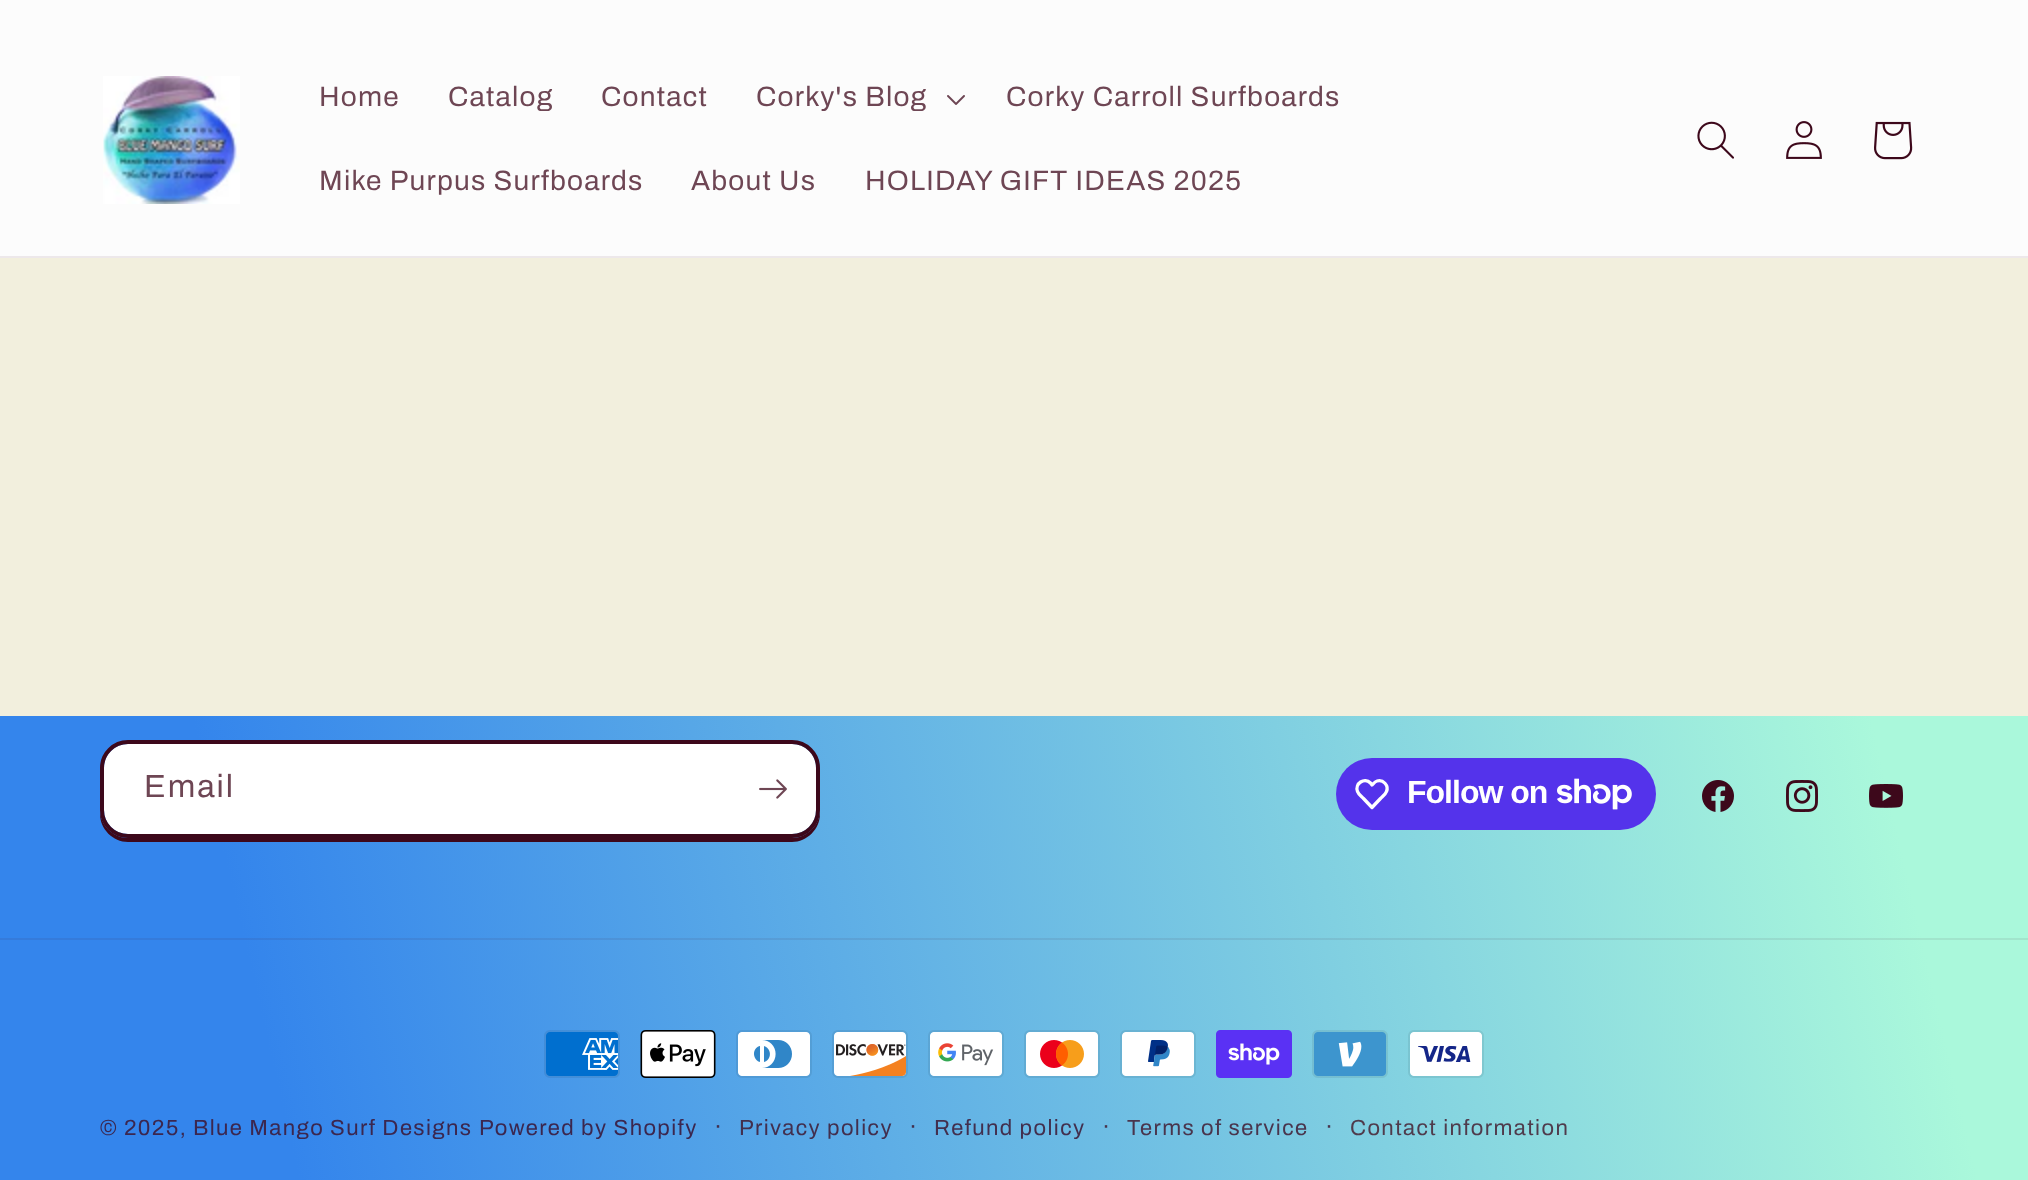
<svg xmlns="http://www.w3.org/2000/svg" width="2028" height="1180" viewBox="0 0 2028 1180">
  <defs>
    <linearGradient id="g1" gradientUnits="userSpaceOnUse" x1="-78" y1="842" x2="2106" y2="338"><stop offset="0.13" stop-color="#3485ec"/><stop offset="0.86" stop-color="#aaf8db"/></linearGradient>
    <linearGradient id="g2" gradientUnits="userSpaceOnUse" x1="-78" y1="842" x2="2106" y2="338"><stop offset="0.13" stop-color="#357bdb"/><stop offset="0.86" stop-color="#a1e5cc"/></linearGradient>
  </defs>
  <rect width="100%" height="100%" fill="#f2efdd"/>
  <path d="M0 0h2028v256H0z" fill="#fcfcfc"/>
  <path d="M0 256h2028v2H0z" fill="#ede8ea"/>
  <image x="103" y="76" width="137" height="128" href="img/1.png"/>
  <image x="947" y="95" width="18" height="10" href="img/2.png"/>
  <image x="1697" y="121" width="37" height="38" href="img/3.png"/>
  <image x="1786" y="121" width="36" height="38" href="img/4.png"/>
  <image x="1874" y="121" width="39" height="39" href="img/5.png"/>
  <path d="M0 716h2028v464H0z" fill="url(#g1)"/>
  <path d="M0 938h2028v2H0z" fill="url(#g2)"/>
  <path d="M100 810V814C100 829 113 842 128 842H792C807 842 820 829 820 814V810C820 825 807 838 792 838H128C113 838 100 825 100 810Z" fill="#3d081b"/>
  <rect x="104" y="744" width="712" height="90" rx="24" fill="#fff"/>
  <rect x="102" y="742" width="716" height="94" rx="26" fill="none" stroke="#3d081b" stroke-width="4"/>
  <image x="759" y="779" width="28" height="20" href="img/6.png"/>
  <rect x="1336" y="758" width="320" height="72" rx="36" fill="#5433eb"/>
  <path d="M1370.5 783L1372 785C1373.5 783.5 1375 781.5 1377 781C1383 779 1389 785.5 1386.5 791.5C1385.5 794.5 1382.5 796.5 1380.5 798.5L1372 807.5L1363.5 798.5C1361.5 796.5 1358.5 794.5 1357.5 791.5C1354.5 783.5 1364.5 777 1370.5 783Z" fill="none" stroke="#fff" stroke-width="3.3" stroke-linejoin="round"/>
  <image x="1557" y="778" width="75" height="32" href="img/7.png"/>
  <image x="1702" y="780" width="32" height="32" href="img/8.png"/>
  <image x="1786" y="780" width="32" height="32" href="img/9.png"/>
  <image x="1869" y="784" width="34" height="24" href="img/10.png"/>
  <image x="544" y="1030" width="76" height="48" href="img/11.png"/>
  <image x="640" y="1030" width="76" height="48" href="img/12.png"/>
  <image x="736" y="1030" width="76" height="48" href="img/13.png"/>
  <image x="832" y="1030" width="76" height="48" href="img/14.png"/>
  <image x="928" y="1030" width="76" height="48" href="img/15.png"/>
  <image x="1024" y="1030" width="76" height="48" href="img/16.png"/>
  <image x="1120" y="1030" width="76" height="48" href="img/17.png"/>
  <image x="1216" y="1030" width="76" height="48" href="img/18.png"/>
  <image x="1312" y="1030" width="76" height="48" href="img/19.png"/>
  <image x="1408" y="1030" width="76" height="48" href="img/20.png"/>
  <g font-family="Archivo" font-size="28" letter-spacing="1.2" fill="#6e4654">
    <text x="319" y="106">Home</text>
    <text x="448" y="106">Catalog</text>
    <text x="601" y="106">Contact</text>
    <text x="756" y="106">Corky's Blog</text>
    <text x="1006" y="106">Corky Carroll Surfboards</text>
    <text x="319" y="190">Mike Purpus Surfboards</text>
    <text x="691" y="190">About Us</text>
    <text x="865" y="190">HOLIDAY GIFT IDEAS 2025</text>
  </g>
  <text x="144" y="797" font-family="Archivo" font-size="32" letter-spacing="2" fill="#6e4654">Email</text>
  <text x="1407" y="803" font-family="Liberation Sans" font-size="32" font-weight="bold" letter-spacing="-1" fill="#fff">Follow on</text>
  <g font-family="Archivo" font-size="22" letter-spacing="1.4" fill="#3b274f">
    <text x="100" y="1135">© 2025,</text>
    <text x="193" y="1135">Blue Mango Surf Designs</text>
    <text x="479" y="1135">Powered by Shopify</text>
  </g>
  <text x="714" y="1135" font-family="Archivo" font-size="24" letter-spacing="1.4" fill="#422f4e">·</text>
  <text x="739" y="1135" font-family="Archivo" font-size="22" letter-spacing="1.4" fill="#422f4e">Privacy policy</text>
  <text x="909" y="1135" font-family="Archivo" font-size="24" letter-spacing="1.4" fill="#422f4e">·</text>
  <text x="934" y="1135" font-family="Archivo" font-size="22" letter-spacing="1.4" fill="#422f4e">Refund policy</text>
  <text x="1102" y="1135" font-family="Archivo" font-size="24" letter-spacing="1.4" fill="#49354d">·</text>
  <text x="1127" y="1135" font-family="Archivo" font-size="22" letter-spacing="1.4" fill="#49354d">Terms of service</text>
  <text x="1325" y="1135" font-family="Archivo" font-size="24" letter-spacing="1.4" fill="#49354d">·</text>
  <text x="1350" y="1135" font-family="Archivo" font-size="22" letter-spacing="1.4" fill="#4f3b4c">Contact information</text>
</svg>
